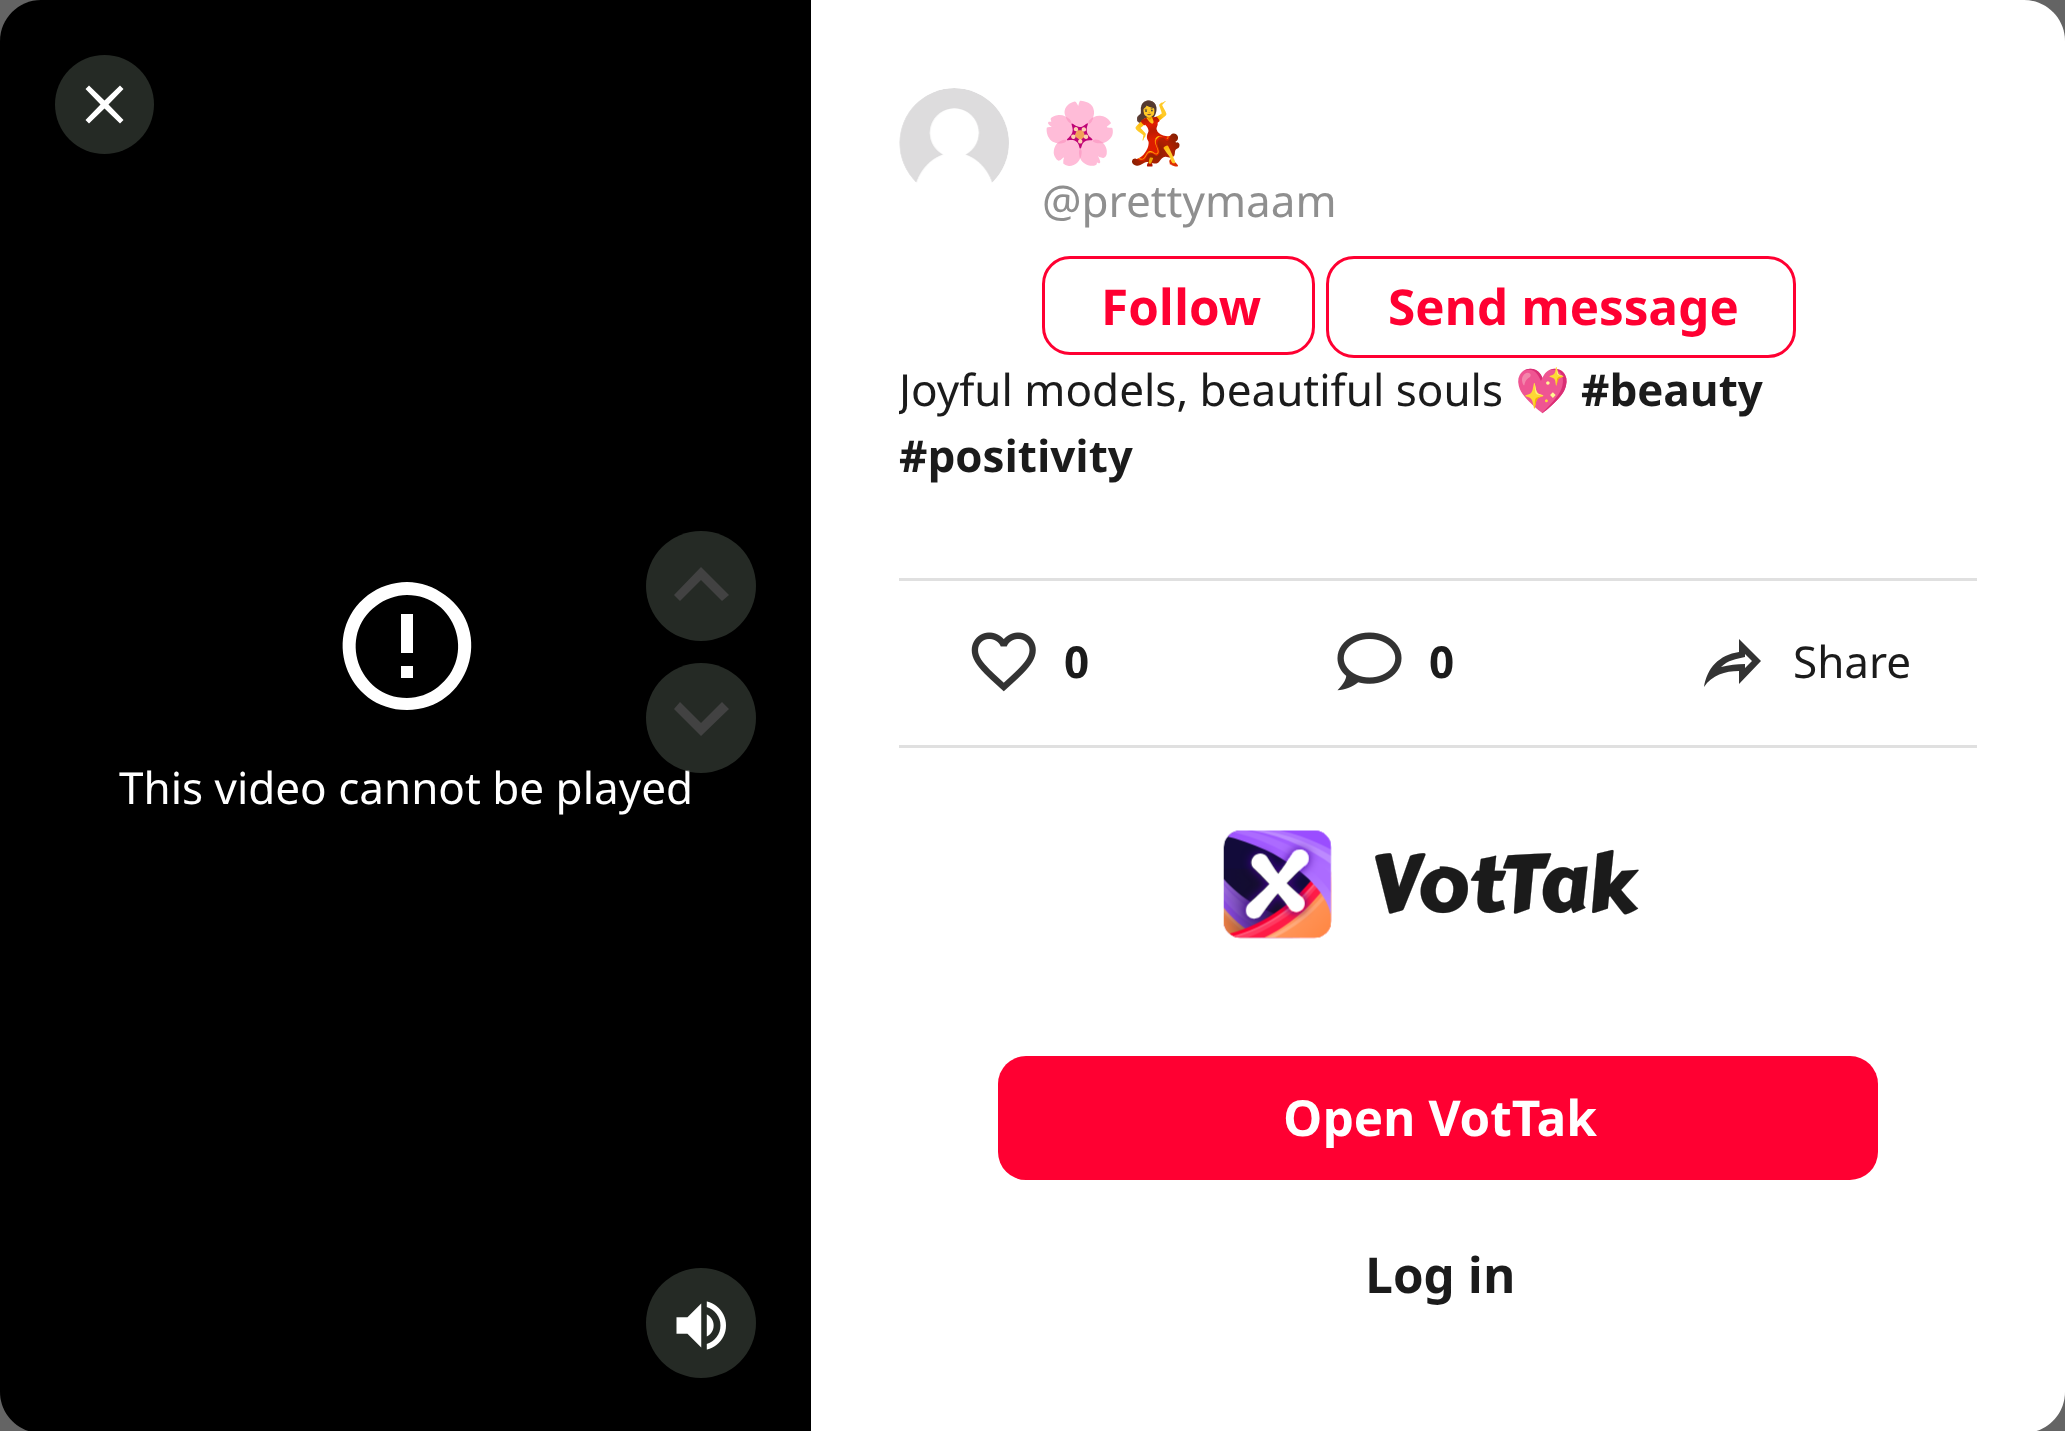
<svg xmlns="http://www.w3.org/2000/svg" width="2065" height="1431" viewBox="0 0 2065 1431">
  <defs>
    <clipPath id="clip1"><path d="M899 358h1078v132H899z"/></clipPath>
  </defs>
  <rect width="100%" height="100%" fill="#646464"/>
  <path d="M41 0H811V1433H41C18.5 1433 0 1414.5 0 1392V41C0 18.5 18.5 0 41 0Z" fill="#000"/>
  <circle cx="104.5" cy="104.5" r="49.5" fill="#252a25"/>
  <path d="M123.5 89L120 85.5L104.5 100.5L89 85.5L85.5 89L100.5 104.5L85.5 120L89 123.5L104.5 108.5L120 123.5L123.5 120L108.5 104.5Z" fill="#fff"/>
  <path d="M401 666H413V678H401ZM401 614H413V653H401ZM407 582C393 582 379 587 368 595C319 633 346 710 407 710C469 710 495 631 445 595C434 587 421 582 407 582ZM407 698C358 698 337 635 376 606C385 599 396 595 407 595C456 595 477 657 438 687C429 694 418 698 407 698Z" fill="#fff"/>
  <circle cx="701" cy="586" r="55" fill="#252a25"/>
  <path d="M680 601L701 580L722 601L729 595L701 567L674 595Z" fill="#424242"/>
  <circle cx="701" cy="1323" r="55" fill="#252a25"/>
  <image x="676" y="1301" width="50" height="49" href="img/1.png"/>
  <path d="M811 0H2024C2046.5 0 2065 18.5 2065 41V1392C2065 1414.5 2046.5 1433 2024 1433H811Z" fill="#fff"/>
  <image x="899" y="88" width="110" height="95" href="img/2.png"/>
  <rect x="1043.5" y="257.5" width="270" height="96" rx="26.5" fill="none" stroke="#ff0032" stroke-width="3"/>
  <rect x="1327.5" y="257.5" width="467" height="99" rx="26.5" fill="none" stroke="#ff0032" stroke-width="3"/>
  <path d="M899 578h1078v3H899z" fill="#e0e0e0"/>
  <image x="971" y="632" width="65" height="60" href="img/3.png"/>
  <image x="1337" y="632" width="65" height="59" href="img/4.png"/>
  <path d="M1739 639V652C1719 655 1707 668 1704 687C1712 675 1725 671 1739 671V684L1761 661ZM1745 654L1752 661L1745 668V664C1737 664 1729 665 1721 667C1728 660 1736 659 1745 657Z" fill="#333"/>
  <path d="M899 745h1078v3H899z" fill="#e0e0e0"/>
  <image x="1223" y="830" width="109" height="109" href="img/5.png"/>
  <image x="1375" y="849" width="264" height="66" href="img/6.png"/>
  <rect x="998" y="1056" width="880" height="124" rx="28" fill="#ff0032"/>
  <text x="119" y="804" font-family="Noto Sans" font-size="44" fill="#fff">This video cannot be played</text>
  <circle cx="701" cy="718" r="55" fill="#3d463d99"/>
  <path d="M680 702L701 723L722 702L729 709L701 736L674 709Z" fill="#424242"/>
  <text x="1042" y="154" font-family="Noto Color Emoji" font-size="60.5" font-weight="bold" fill="#1b1b1b">🌸💃</text>
  <text x="1042" y="217" font-family="Noto Sans" font-size="44" fill="#8f8f8f">@prettymaam</text>
  <g font-family="Noto Sans" font-size="49.5" font-weight="bold" fill="#ff0032">
    <text x="1101" y="325">Follow</text>
    <text x="1388" y="325">Send message</text>
  </g>
  <g clip-path="url(#clip1)">
    <text x="899" y="406" font-family="Noto Sans" font-size="44" fill="#1b1b1b">Joyful models, beautiful souls</text>
  </g>
  <text x="1515" y="406" font-family="Noto Color Emoji" font-size="44" fill="#1b1b1b">💖</text>
  <g font-family="Noto Sans" font-size="44" font-weight="bold" fill="#1b1b1b">
    <text x="1581" y="406">#beauty</text>
    <text x="899" y="472">#positivity</text>
    <text x="1064" y="678">0</text>
    <text x="1429" y="678">0</text>
  </g>
  <text x="1793" y="678" font-family="Noto Sans" font-size="44" fill="#1b1b1b">Share</text>
  <text x="1283" y="1136" font-family="Noto Sans" font-size="49.5" font-weight="bold" fill="#fff">Open VotTak</text>
  <text x="1365" y="1293" font-family="Noto Sans" font-size="49.5" font-weight="bold" fill="#1b1b1b">Log in</text>
</svg>
